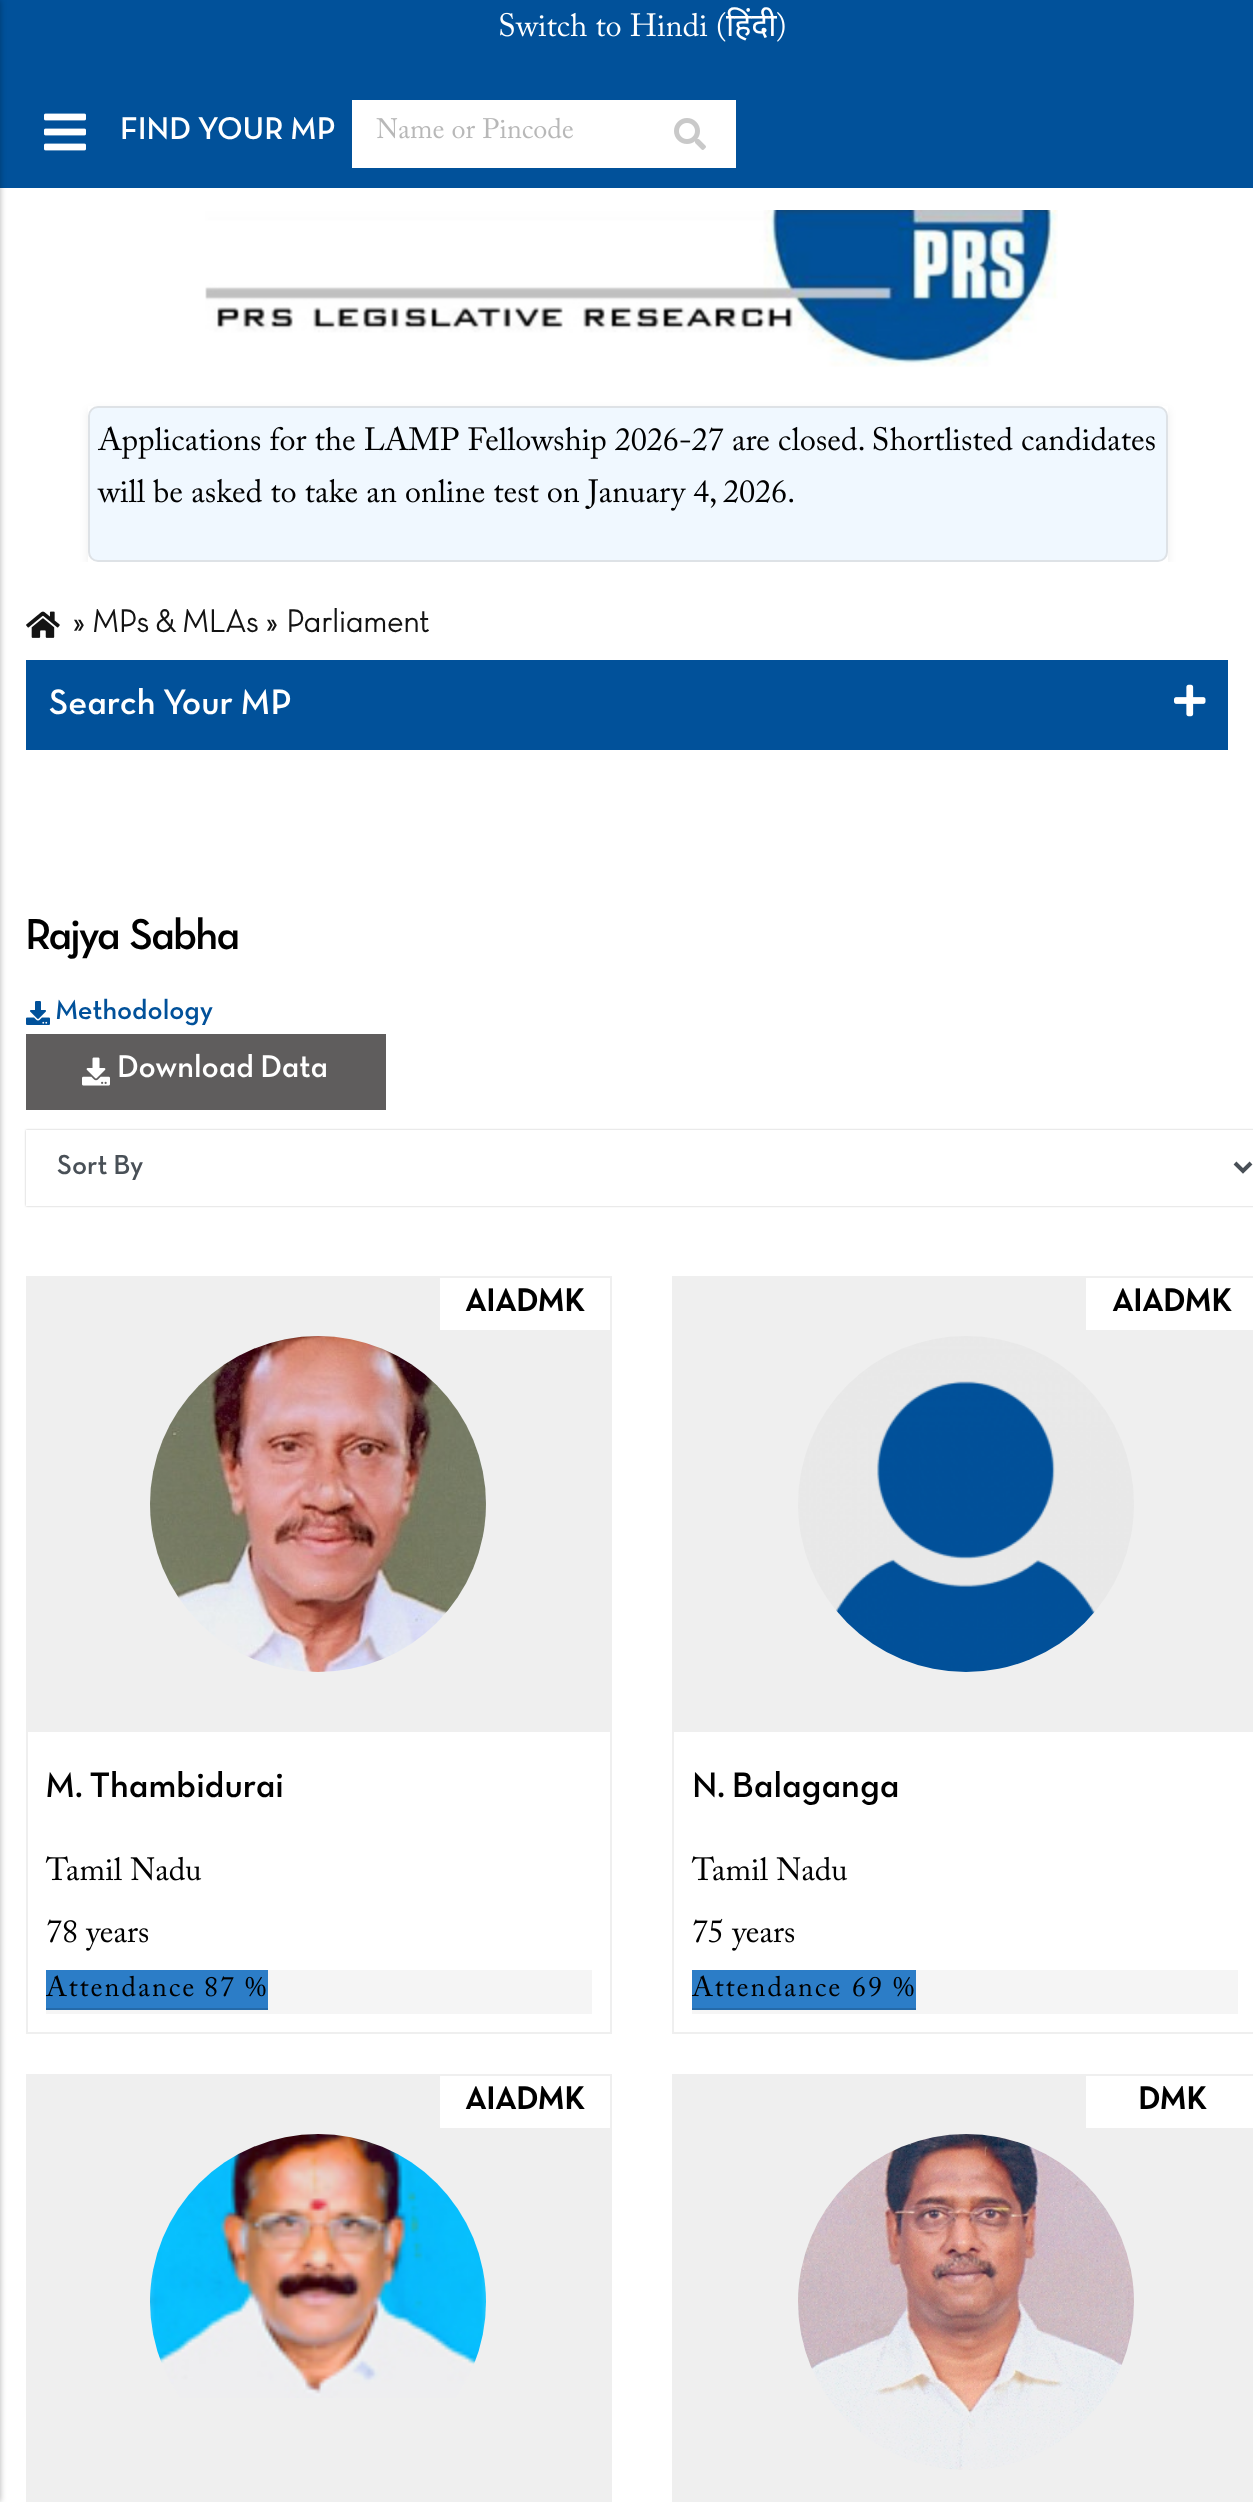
<svg xmlns="http://www.w3.org/2000/svg" width="1253" height="2502" viewBox="0 0 1253 2502">
  <defs>
    <clipPath id="clip1"><path d="M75 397H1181V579H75ZM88 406H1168V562H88Z" clip-rule="evenodd"/></clipPath>
    <clipPath id="clip2"><path d="M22 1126H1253V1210H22ZM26 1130H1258V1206H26Z" clip-rule="evenodd"/></clipPath>
  </defs>
  <rect width="100%" height="100%" fill="#fff"/>
  <path d="M0 0h1253v188H0z" fill="#01519a"/>
  <image x="500" y="12" width="226" height="30" href="img/1.png"/>
  <image x="777" y="12" width="8" height="30" href="img/2.png"/>
  <path d="M-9 0h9v2502H-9z" fill="#0000004d" filter="blur(3px)"/>
  <image x="44" y="113" width="42" height="38" href="img/3.png"/>
  <path d="M352 100h384v68H352z" fill="#fff"/>
  <image x="376" y="117" width="197" height="22" href="img/4.png"/>
  <image x="674" y="118" width="32" height="32" href="img/5.png"/>
  <image x="205" y="210" width="853" height="157" href="img/6.png"/>
  <g clip-path="url(#clip1)">
    <path d="M88 410h1080v156H88z" fill="#00000012" filter="blur(4px)"/>
  </g>
  <rect x="89" y="407" width="1078" height="154" rx="9" fill="#f0f8ff" stroke="#dee2e6" stroke-width="2"/>
  <image x="97" y="426" width="1058" height="33" href="img/7.png"/>
  <image x="97" y="478" width="697" height="33" href="img/8.png"/>
  <rect x="26" y="562" width="1202" height="98" rx="8" fill="#fff"/>
  <image x="26" y="611" width="34" height="27" href="img/9.png"/>
  <path d="M26 660h1202v90H26z" fill="#01519a"/>
  <image x="1174" y="684" width="32" height="33" href="img/10.png"/>
  <image x="26" y="1001" width="24" height="24" href="img/11.png"/>
  <path d="M26 1034h360v76H26z" fill="#5f5d5d"/>
  <image x="82" y="1057" width="28" height="29" href="img/12.png"/>
  <g clip-path="url(#clip2)">
    <path d="M26 1130h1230v76H26z" fill="#bfbfbf" filter="blur(1px)"/>
  </g>
  <path d="M1235 1163L1243 1171L1251 1163" fill="none" stroke="#495057" stroke-width="4"/>
  <path d="M27 1277h584v756H27z" fill="none" stroke="#efefef" stroke-width="2"/>
  <path d="M28 1278h582v454H28z" fill="#efefef"/>
  <image x="150" y="1336" width="336" height="336" href="img/13.png"/>
  <path d="M440 1278h170v52H440z" fill="#fff"/>
  <image x="45" y="1856" width="157" height="25" href="img/14.png"/>
  <image x="47" y="1919" width="102" height="32" href="img/15.png"/>
  <path d="M46 1970h546v44H46z" fill="#f5f5f5"/>
  <path d="M46 1970h222v38H46z" fill="#2c7dc7"/>
  <path d="M46 2008h222v2H46z" fill="#256aa9"/>
  <image x="46" y="1975" width="148" height="22" href="img/16.png"/>
  <image x="205" y="1976" width="61" height="21" href="img/17.png"/>
  <path d="M673 1277h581v756H673z" fill="none" stroke="#efefef" stroke-width="2"/>
  <path d="M674 1278h579v454H674z" fill="#efefef"/>
  <image x="798" y="1336" width="336" height="336" href="img/18.png"/>
  <path d="M1086 1278h167v52H1086z" fill="#fff"/>
  <image x="691" y="1856" width="157" height="25" href="img/14.png"/>
  <image x="693" y="1918" width="102" height="33" href="img/19.png"/>
  <path d="M692 1970h546v44H692z" fill="#f5f5f5"/>
  <path d="M692 1970h224v38H692z" fill="#2c7dc7"/>
  <path d="M692 2008h224v2H692z" fill="#256aa9"/>
  <image x="692" y="1975" width="148" height="22" href="img/16.png"/>
  <image x="853" y="1976" width="61" height="21" href="img/20.png"/>
  <path d="M26 2074h586v428H26z" fill="#efefef"/>
  <image x="150" y="2134" width="336" height="264" href="img/21.png"/>
  <path d="M440 2076h170v52H440z" fill="#fff"/>
  <path d="M672 2074h581v428H672z" fill="#efefef"/>
  <image x="798" y="2134" width="336" height="336" href="img/22.png"/>
  <path d="M1086 2076h167v52H1086z" fill="#fff"/>
  <text x="726" y="36" font-family="Noto Sans" font-size="32" fill="#fff">हिंदी</text>
  <text x="120" y="139" font-family="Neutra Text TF" font-size="32" font-weight="500" fill="#fff">FIND YOUR MP</text>
  <g font-family="Neutra Text TF" font-size="32" font-weight="bold" fill="#131313">
    <text x="73" y="632">»</text>
    <text x="92" y="632">MPs &amp; MLAs</text>
    <text x="266" y="632">»</text>
    <text x="286" y="632">Parliament</text>
  </g>
  <text x="49" y="714" font-family="Neutra Text TF" font-size="36" font-weight="500" fill="#fff">Search Your MP</text>
  <text x="25" y="949" word-spacing="4" font-family="Neutra Text TF" font-size="44" font-weight="500" letter-spacing="-2" fill="#000">Rajya Sabha</text>
  <text x="55" y="1019" font-family="Neutra Text TF" font-size="28" font-weight="500" fill="#01519a">Methodology</text>
  <text x="117" y="1077" font-family="Neutra Text TF" font-size="32" font-weight="500" fill="#fff">Download Data</text>
  <text x="57" y="1174" font-family="Neutra Text TF" font-size="28" font-weight="500" fill="#495057">Sort By</text>
  <text x="465" y="1311" font-family="'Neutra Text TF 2'" font-size="32" font-weight="bold" fill="#000">AIADMK</text>
  <text x="45" y="1797" font-family="Neutra Text TF" font-size="36" font-weight="500" fill="#000">M. Thambidurai</text>
  <text x="1112" y="1311" font-family="'Neutra Text TF 2'" font-size="32" font-weight="bold" fill="#000">AIADMK</text>
  <text x="692" y="1797" font-family="Neutra Text TF" font-size="36" font-weight="500" fill="#000">N. Balaganga</text>
  <g font-family="'Neutra Text TF 2'" font-size="32" font-weight="bold" fill="#000">
    <text x="465" y="2109">AIADMK</text>
    <text x="1138" y="2109">DMK</text>
  </g>
</svg>
